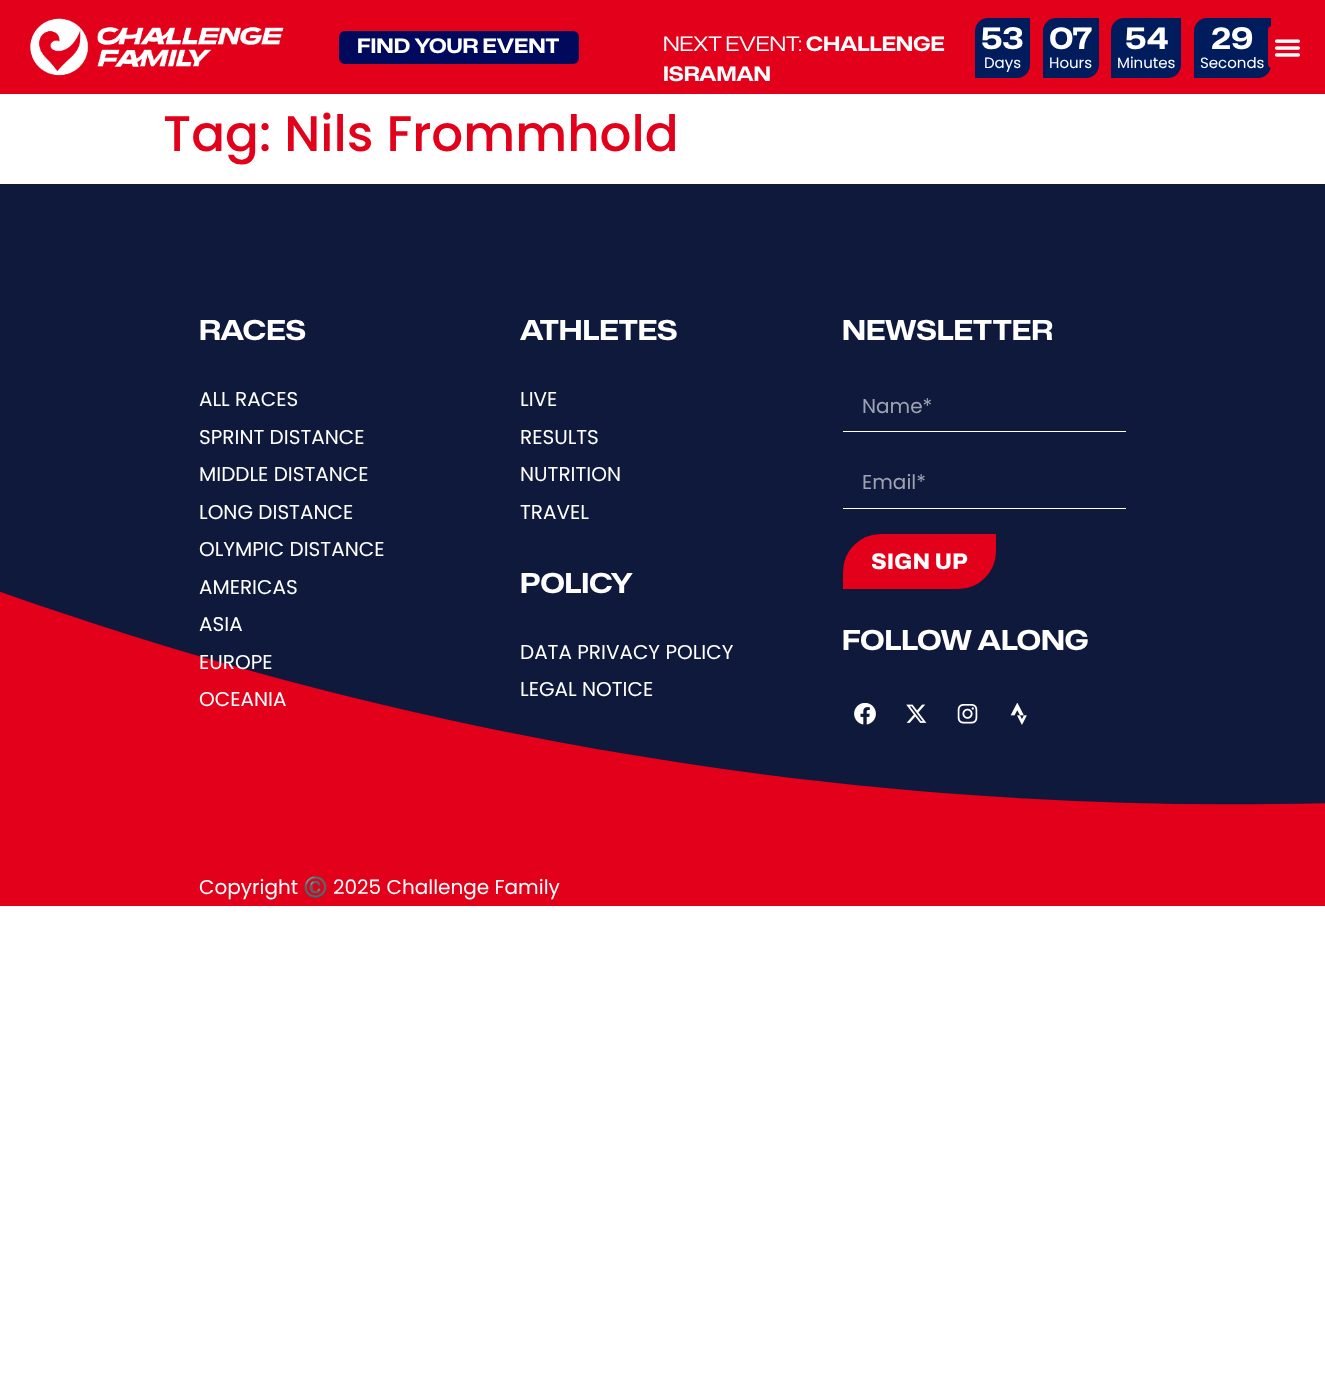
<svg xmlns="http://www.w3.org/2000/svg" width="1325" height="1382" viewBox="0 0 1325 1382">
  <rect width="100%" height="100%" fill="#fff"/>
  <path d="M0 0h1325v94H0z" fill="#e2001a"/>
  <image x="30" y="18" width="254" height="58" href="img/1.png"/>
  <rect x="339" y="31" width="240" height="33" rx="6" fill="#00095c"/>
  <path d="M988 18H1030V65C1030 72 1024 78 1017 78H975V31C975 24 981 18 988 18Z" fill="#001c5c"/>
  <path d="M1056 18H1099V65C1099 72 1093 78 1086 78H1043V31C1043 24 1049 18 1056 18Z" fill="#001c5c"/>
  <path d="M1124 18H1181V65C1181 72 1175 78 1168 78H1111V31C1111 24 1117 18 1124 18Z" fill="#001c5c"/>
  <path d="M1207 18H1271V65C1271 72 1265 78 1258 78H1194V31C1194 24 1200 18 1207 18Z" fill="#001c5c"/>
  <rect x="1268" y="26" width="41" height="42" rx="4" fill="#e2001a"/>
  <image x="1274" y="39" width="27" height="18" href="img/2.png"/>
  <path d="M0 184h1325v621H0z" fill="#0f193c"/>
  <path d="M843 431h283v1H843z" fill="#fff"/>
  <path d="M843 508h283v1H843z" fill="#fff"/>
  <path d="M881 536H994V551C994 571 978 587 958 587H845V572C845 552 861 536 881 536Z" fill="#e2001a" stroke="#e2001a" stroke-width="4"/>
  <path d="M1273 804C-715 826-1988-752-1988-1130V870H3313V-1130C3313-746 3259 790 1273 804Z" fill="#e2001a"/>
  <image x="854" y="703" width="22" height="22" href="img/3.png"/>
  <image x="906" y="704" width="21" height="19" href="img/4.png"/>
  <image x="957" y="704" width="21" height="20" href="img/5.png"/>
  <image x="1010" y="703" width="17" height="22" href="img/6.png"/>
  <path d="M0 870h1325v36H0z" fill="#e2001a"/>
  <text x="357" y="53" font-family="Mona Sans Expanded" font-size="20" font-weight="bold" fill="#fff">FIND YOUR EVENT</text>
  <text x="663" y="51" font-family="Mona Sans Expanded" font-size="20" fill="#fff">NEXT EVENT:</text>
  <g font-family="Mona Sans Expanded" font-size="20" font-weight="bold" fill="#fff">
    <text x="806" y="51">CHALLENGE</text>
    <text x="663" y="81">ISRAMAN</text>
  </g>
  <text x="981" y="49" font-family="Mona Sans Expanded" font-size="30" font-weight="bold" fill="#fff">53</text>
  <text x="984" y="68" font-family="Poppins" font-size="15" fill="#fff">Days</text>
  <text x="1049" y="49" font-family="Mona Sans Expanded" font-size="30" font-weight="bold" fill="#fff">07</text>
  <text x="1049" y="68" font-family="Poppins" font-size="15" fill="#fff">Hours</text>
  <text x="1125" y="49" font-family="Mona Sans Expanded" font-size="30" font-weight="bold" fill="#fff">54</text>
  <text x="1117" y="68" font-family="Poppins" font-size="15" fill="#fff">Minutes</text>
  <text x="1211" y="49" font-family="Mona Sans Expanded" font-size="30" font-weight="bold" fill="#fff">29</text>
  <text x="1200" y="68" font-family="Poppins" font-size="15" fill="#fff">Seconds</text>
  <text x="163" y="151" font-family="Poppins" font-size="50" font-weight="500" fill="#e2001a">Tag: Nils Frommhold</text>
  <text x="199" y="340" font-family="Mona Sans Expanded" font-size="27.5" font-weight="bold" fill="#fff">RACES</text>
  <g font-family="Poppins" font-size="20" fill="#fff">
    <text x="199" y="406">ALL RACES</text>
    <text x="199" y="444">SPRINT DISTANCE</text>
    <text x="199" y="481">MIDDLE DISTANCE</text>
    <text x="199" y="519">LONG DISTANCE</text>
    <text x="199" y="556">OLYMPIC DISTANCE</text>
    <text x="199" y="594">AMERICAS</text>
    <text x="199" y="631">ASIA</text>
    <text x="199" y="669">EUROPE</text>
    <text x="199" y="706">OCEANIA</text>
  </g>
  <text x="520" y="340" font-family="Mona Sans Expanded" font-size="27.5" font-weight="bold" fill="#fff">ATHLETES</text>
  <g font-family="Poppins" font-size="20" fill="#fff">
    <text x="520" y="406">LIVE</text>
    <text x="520" y="444">RESULTS</text>
    <text x="520" y="481">NUTRITION</text>
    <text x="520" y="519">TRAVEL</text>
  </g>
  <text x="520" y="593" font-family="Mona Sans Expanded" font-size="27.5" font-weight="bold" fill="#fff">POLICY</text>
  <g font-family="Poppins" font-size="20" fill="#fff">
    <text x="520" y="659">DATA PRIVACY POLICY</text>
    <text x="520" y="696">LEGAL NOTICE</text>
  </g>
  <text x="842" y="340" font-family="Mona Sans Expanded" font-size="27.5" font-weight="bold" fill="#fff">NEWSLETTER</text>
  <g font-family="Poppins" font-size="20" fill="#9fa3b1">
    <text x="862" y="413">Name*</text>
    <text x="862" y="489">Email*</text>
  </g>
  <text x="871" y="569" font-family="Archivo" font-size="22.5" font-weight="800" fill="#fff">SIGN UP</text>
  <text x="842" y="650" font-family="Mona Sans Expanded" font-size="27.5" font-weight="bold" fill="#fff">FOLLOW ALONG</text>
  <text x="199" y="894" font-family="Poppins" font-size="20" fill="#fff">Copyright</text>
  <text x="303" y="894" font-family="Noto Color Emoji" font-size="20" fill="#fff">©️</text>
  <text x="333" y="894" font-family="Poppins" font-size="20" fill="#fff">2025 Challenge Family</text>
</svg>
